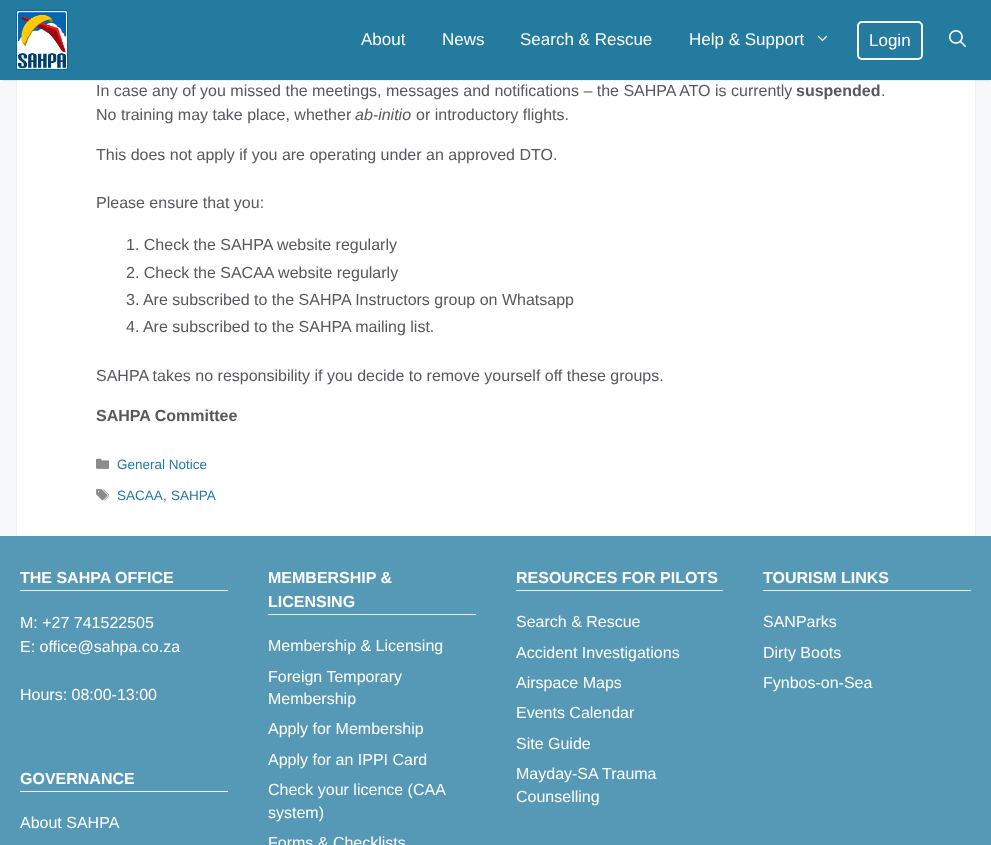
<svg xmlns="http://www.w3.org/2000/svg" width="991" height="845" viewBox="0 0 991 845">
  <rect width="100%" height="100%" fill="#f7f8f9"/>
  <path d="M17 80h958v456H17z" fill="#fff"/>
  <path d="M975 80h1v456H975z" fill="#efefef"/>
  <path d="M16 80h1v456H16z" fill="#efefef"/>
  <path d="M2 4h987v76H2z" fill="#00000033" filter="blur(1px)"/>
  <path d="M0 0h991v80H0z" fill="#247ba0"/>
  <image x="16" y="10" width="52" height="60" href="img/1.png"/>
  <image x="817" y="35" width="11" height="7" href="img/2.png"/>
  <rect x="858" y="22" width="64" height="37" rx="4" fill="none" stroke="#fff" stroke-width="2"/>
  <image x="949" y="30" width="17" height="17" href="img/3.png"/>
  <image x="96" y="458" width="13" height="11" href="img/4.png"/>
  <image x="96" y="489" width="13" height="12" href="img/5.png"/>
  <path d="M0 536h991v309H0z" fill="#5699b6"/>
  <path d="M20 590h208v1H20z" fill="#efefef"/>
  <path d="M20 791h208v1H20z" fill="#efefef"/>
  <path d="M268 614h208v1H268z" fill="#efefef"/>
  <path d="M516 590h207v1H516z" fill="#efefef"/>
  <path d="M763 590h208v1H763z" fill="#efefef"/>
  <g font-family="Liberation Sans" font-size="17" fill="#fff">
    <text x="361" y="45">About</text>
    <text x="442" y="45">News</text>
    <text x="520" y="45">Search &amp; Rescue</text>
    <text x="689" y="45">Help &amp; Support</text>
    <text x="869" y="46">Login</text>
  </g>
  <text x="96" y="96" font-family="Liberation Sans" font-size="16" fill="#575760">In case any of you missed the meetings, messages and notifications – the SAHPA ATO is currently</text>
  <text x="796" y="96" font-family="Liberation Sans" font-size="16" font-weight="bold" fill="#575760">suspended</text>
  <g font-family="Liberation Sans" font-size="16" fill="#575760">
    <text x="881" y="96">.</text>
    <text x="96" y="120">No training may take place, whether</text>
  </g>
  <text x="355" y="120" font-family="Liberation Sans" font-size="16" font-style="italic" fill="#575760">ab-initio</text>
  <g font-family="Liberation Sans" font-size="16" fill="#575760">
    <text x="416" y="120">or introductory flights.</text>
    <text x="96" y="160">This does not apply if you are operating under an approved DTO.</text>
    <text x="96" y="208">Please ensure that you:</text>
    <text x="126" y="250">1. Check the SAHPA website regularly</text>
    <text x="126" y="278">2. Check the SACAA website regularly</text>
    <text x="126" y="305">3. Are subscribed to the SAHPA Instructors group on Whatsapp</text>
    <text x="126" y="332">4. Are subscribed to the SAHPA mailing list.</text>
    <text x="96" y="381">SAHPA takes no responsibility if you decide to remove yourself off these groups.</text>
  </g>
  <text x="96" y="421" font-family="Liberation Sans" font-size="16" font-weight="bold" fill="#575760">SAHPA Committee</text>
  <g font-family="Liberation Sans" font-size="13.5" fill="#247ba0">
    <text x="117" y="469">General Notice</text>
    <text x="117" y="500">SACAA</text>
  </g>
  <text x="163" y="500" font-family="Liberation Sans" font-size="13.5" fill="#595959">,</text>
  <text x="171" y="500" font-family="Liberation Sans" font-size="13.5" fill="#247ba0">SAHPA</text>
  <text x="20" y="583" font-family="Liberation Sans" font-size="16" font-weight="bold" fill="#fff">THE SAHPA OFFICE</text>
  <g font-family="Liberation Sans" font-size="16" fill="#fff">
    <text x="20" y="628">M: +27 741522505</text>
    <text x="20" y="652">E: office@sahpa.co.za</text>
    <text x="20" y="700">Hours: 08:00-13:00</text>
  </g>
  <text x="20" y="784" font-family="Liberation Sans" font-size="16" font-weight="bold" fill="#fff">GOVERNANCE</text>
  <text x="20" y="828" font-family="Liberation Sans" font-size="16" fill="#fff">About SAHPA</text>
  <g font-family="Liberation Sans" font-size="16" font-weight="bold" fill="#fff">
    <text x="268" y="583">MEMBERSHIP &amp;</text>
    <text x="268" y="607">LICENSING</text>
  </g>
  <g font-family="Liberation Sans" font-size="16" fill="#fff">
    <text x="268" y="651">Membership &amp; Licensing</text>
    <text x="268" y="682">Foreign Temporary</text>
    <text x="268" y="704">Membership</text>
    <text x="268" y="734">Apply for Membership</text>
    <text x="268" y="765">Apply for an IPPI Card</text>
    <text x="268" y="795">Check your licence (CAA</text>
    <text x="268" y="818">system)</text>
    <text x="268" y="848">Forms &amp; Checklists</text>
  </g>
  <text x="516" y="583" font-family="Liberation Sans" font-size="16" font-weight="bold" fill="#fff">RESOURCES FOR PILOTS</text>
  <g font-family="Liberation Sans" font-size="16" fill="#fff">
    <text x="516" y="627">Search &amp; Rescue</text>
    <text x="516" y="658">Accident Investigations</text>
    <text x="516" y="688">Airspace Maps</text>
    <text x="516" y="718">Events Calendar</text>
    <text x="516" y="749">Site Guide</text>
    <text x="516" y="779">Mayday-SA Trauma</text>
    <text x="516" y="802">Counselling</text>
  </g>
  <text x="763" y="583" font-family="Liberation Sans" font-size="16" font-weight="bold" fill="#fff">TOURISM LINKS</text>
  <g font-family="Liberation Sans" font-size="16" fill="#fff">
    <text x="763" y="627">SANParks</text>
    <text x="763" y="658">Dirty Boots</text>
    <text x="763" y="688">Fynbos-on-Sea</text>
  </g>
</svg>
